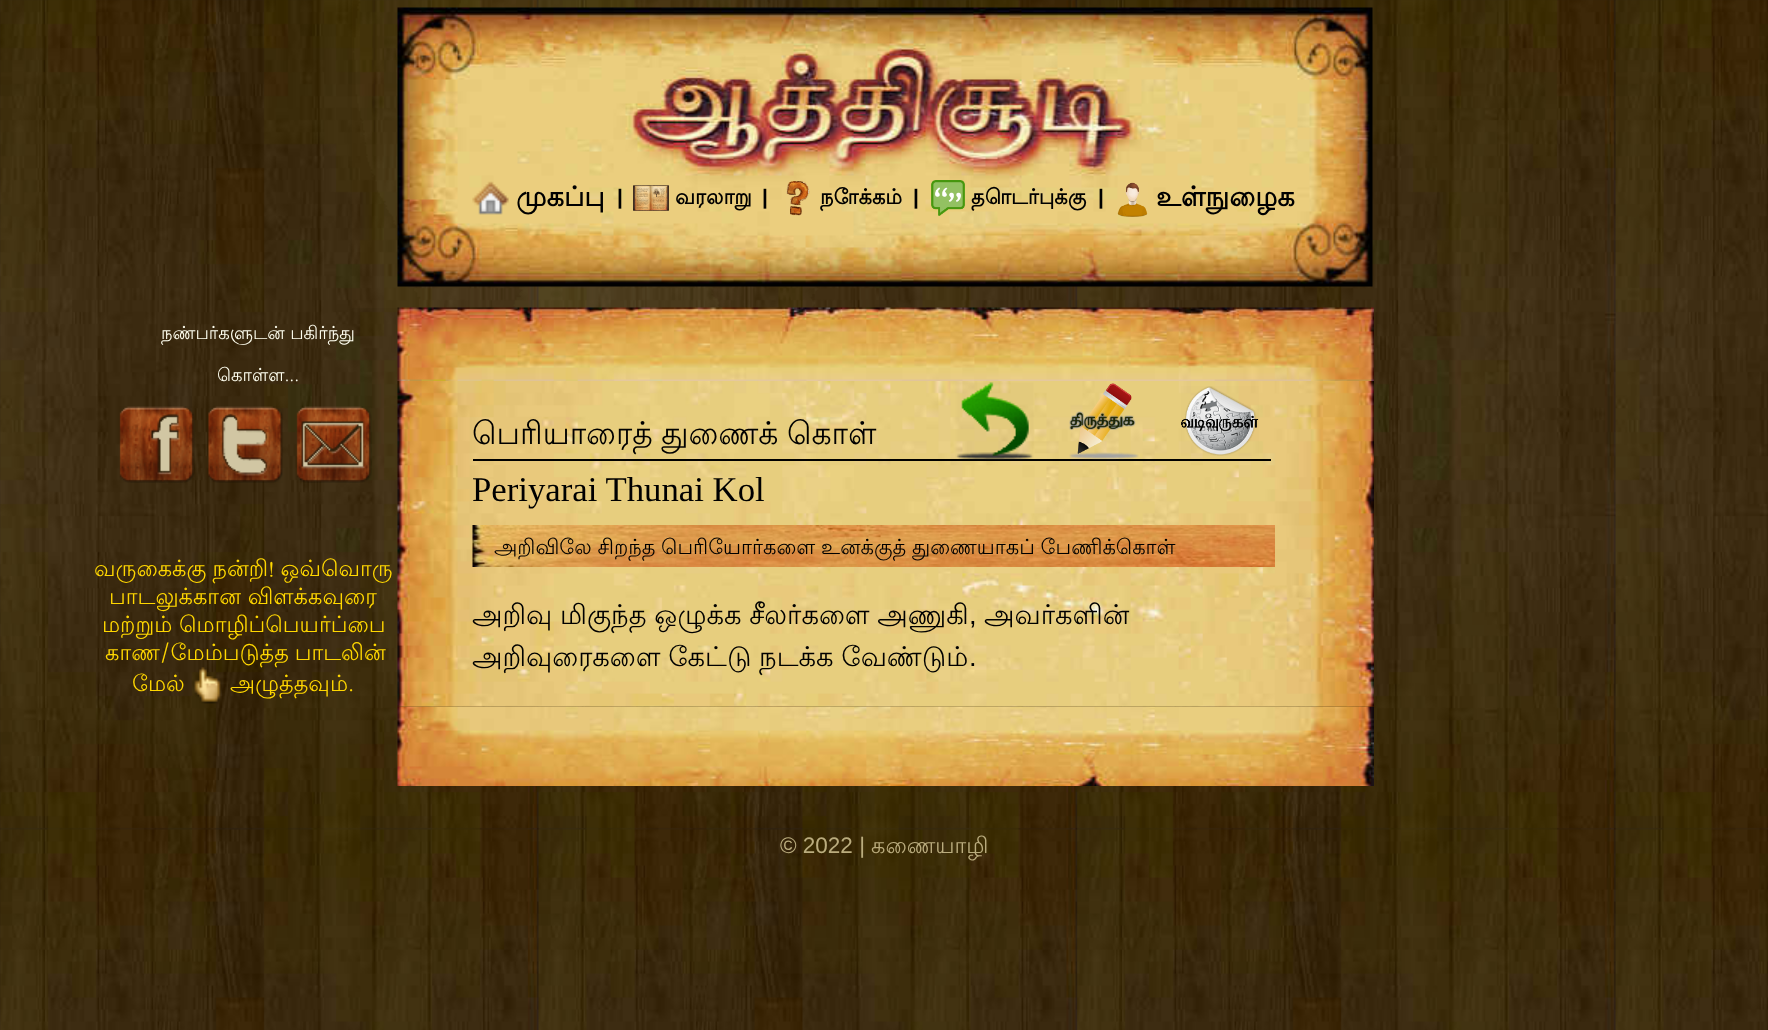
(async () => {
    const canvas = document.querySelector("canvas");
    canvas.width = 1768;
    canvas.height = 1030;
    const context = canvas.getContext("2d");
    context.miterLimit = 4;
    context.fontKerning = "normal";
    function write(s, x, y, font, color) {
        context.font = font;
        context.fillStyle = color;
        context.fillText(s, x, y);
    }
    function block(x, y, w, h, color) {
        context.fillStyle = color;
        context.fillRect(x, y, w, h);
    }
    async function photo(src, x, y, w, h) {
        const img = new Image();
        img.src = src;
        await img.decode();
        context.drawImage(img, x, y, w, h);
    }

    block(0, 0, 1768, 1030, "rgb(255, 255, 255)");
    await photo("media/1.png", 0, 0, 1768, 1030);
    await photo("media/2.png", 352, 0, 527, 308);
    await photo("media/3.png", 397, 7, 976, 280);
    await photo("media/4.png", 472, 181, 37, 34);
    write("முகப்பு", 516, 206, "bold 27.4px Lohit Tamil", "rgb(0, 0, 0)");
    write("|", 617, 204, "bold 21px Liberation Sans", "rgb(0, 0, 0)");
    await photo("media/5.png", 633, 185, 36, 26);
    write("வரலாறு", 675, 204, "bold 21px Lohit Tamil", "rgb(0, 0, 0)");
    write("|", 762, 204, "bold 21px Liberation Sans", "rgb(0, 0, 0)");
    await photo("media/6.png", 786, 181, 24, 35);
    write("நோக்கம்", 820, 204, "bold 21px Lohit Tamil", "rgb(0, 0, 0)");
    write("|", 913, 204, "bold 21px Liberation Sans", "rgb(0, 0, 0)");
    await photo("media/7.png", 931, 180, 34, 36);
    write("தொடர்புக்கு", 971, 204, "bold 21px Lohit Tamil", "rgb(0, 0, 0)");
    write("|", 1098, 204, "bold 21px Liberation Sans", "rgb(0, 0, 0)");
    await photo("media/8.png", 1117, 182, 31, 35);
    write("உள்நுழைக", 1156, 206, "bold 27.4px Lohit Tamil", "rgb(0, 0, 0)");
    await photo("media/9.png", 397, 307, 977, 74);
    write("நண்பர்களுடன் பகிர்ந்து", 161, 339, "18px Lohit Tamil", "rgb(255, 255, 240)");
    write("கொள்ள...", 217, 381, "18px Lohit Tamil", "rgb(255, 255, 240)");
    await photo("media/10.png", 119, 406, 76, 77);
    await photo("media/11.png", 208, 406, 75, 77);
    await photo("media/12.png", 296, 406, 76, 77);
    context.wordSpacing = "-0.5px";
    write("வருகைக்கு நன்றி! ஒவ்வொரு", 94, 576, "22.5px Lohit Tamil", "rgb(255, 215, 0)");
    context.wordSpacing = "0px";
    write("பாடலுக்கான விளக்கவுரை", 109, 604, "22.5px Lohit Tamil", "rgb(255, 215, 0)");
    write("மற்றும் மொழிப்பெயர்ப்பை", 102, 632, "22.5px Lohit Tamil", "rgb(255, 215, 0)");
    context.wordSpacing = "-1px";
    write("காண/மேம்படுத்த பாடலின்", 105, 660, "22.5px Lohit Tamil", "rgb(255, 215, 0)");
    context.wordSpacing = "0px";
    write("மேல்", 132, 691, "22.5px Lohit Tamil", "rgb(255, 215, 0)");
    await photo("media/13.png", 194, 667, 27, 37);
    write("அழுத்தவும்.", 230, 691, "22.5px Lohit Tamil", "rgb(255, 215, 0)");
    await photo("media/19.png", 397, 706, 977, 80);
    await photo("media/14.png", 397, 381, 977, 326);
    context.wordSpacing = "-1px";
    write("பெரியாரைத் துணைக் கொள்", 472, 444, "31.5px Lohit Tamil", "rgb(0, 0, 0)");
    block(473, 459, 798, 2, "rgb(0, 0, 0)");
    await photo("media/15.png", 955, 382, 79, 78);
    await photo("media/16.png", 1069, 383, 70, 77);
    await photo("media/17.png", 1181, 386, 78, 70);
    context.wordSpacing = "0px";
    write("Periyarai Thunai Kol", 472, 501, "34.75px Liberation Serif", "rgb(0, 0, 0)");
    await photo("media/18.png", 472, 525, 803, 42);
    context.wordSpacing = "-0.5px";
    write("அறிவிலே சிறந்த பெரியோர்களை உனக்குத் துணையாகப் பேணிக்கொள்", 494, 554, "21px Lohit Tamil", "rgb(0, 0, 0)");
    write("அறிவு மிகுந்த ஒழுக்க சீலர்களை அணுகி", 472, 624, "27.4px Lohit Tamil", "rgb(0, 0, 0)");
    context.wordSpacing = "0px";
    write(",", 969, 624, "27.4px Liberation Sans", "rgb(0, 0, 0)");
    write("அவர்களின்", 984, 624, "27.4px Lohit Tamil", "rgb(0, 0, 0)");
    context.wordSpacing = "-0.5px";
    write("அறிவுரைகளை கேட்டு நடக்க வேண்டும்", 472, 666, "27.4px Lohit Tamil", "rgb(0, 0, 0)");
    context.wordSpacing = "0px";
    write(".", 969, 666, "27.4px Liberation Sans", "rgb(0, 0, 0)");
    write("© 2022 |", 780, 853, "22.5px Liberation Sans", "rgb(186, 172, 126)");
    write("கணையாழி", 871, 853, "22.5px Lohit Tamil", "rgb(186, 172, 126)");
})();
